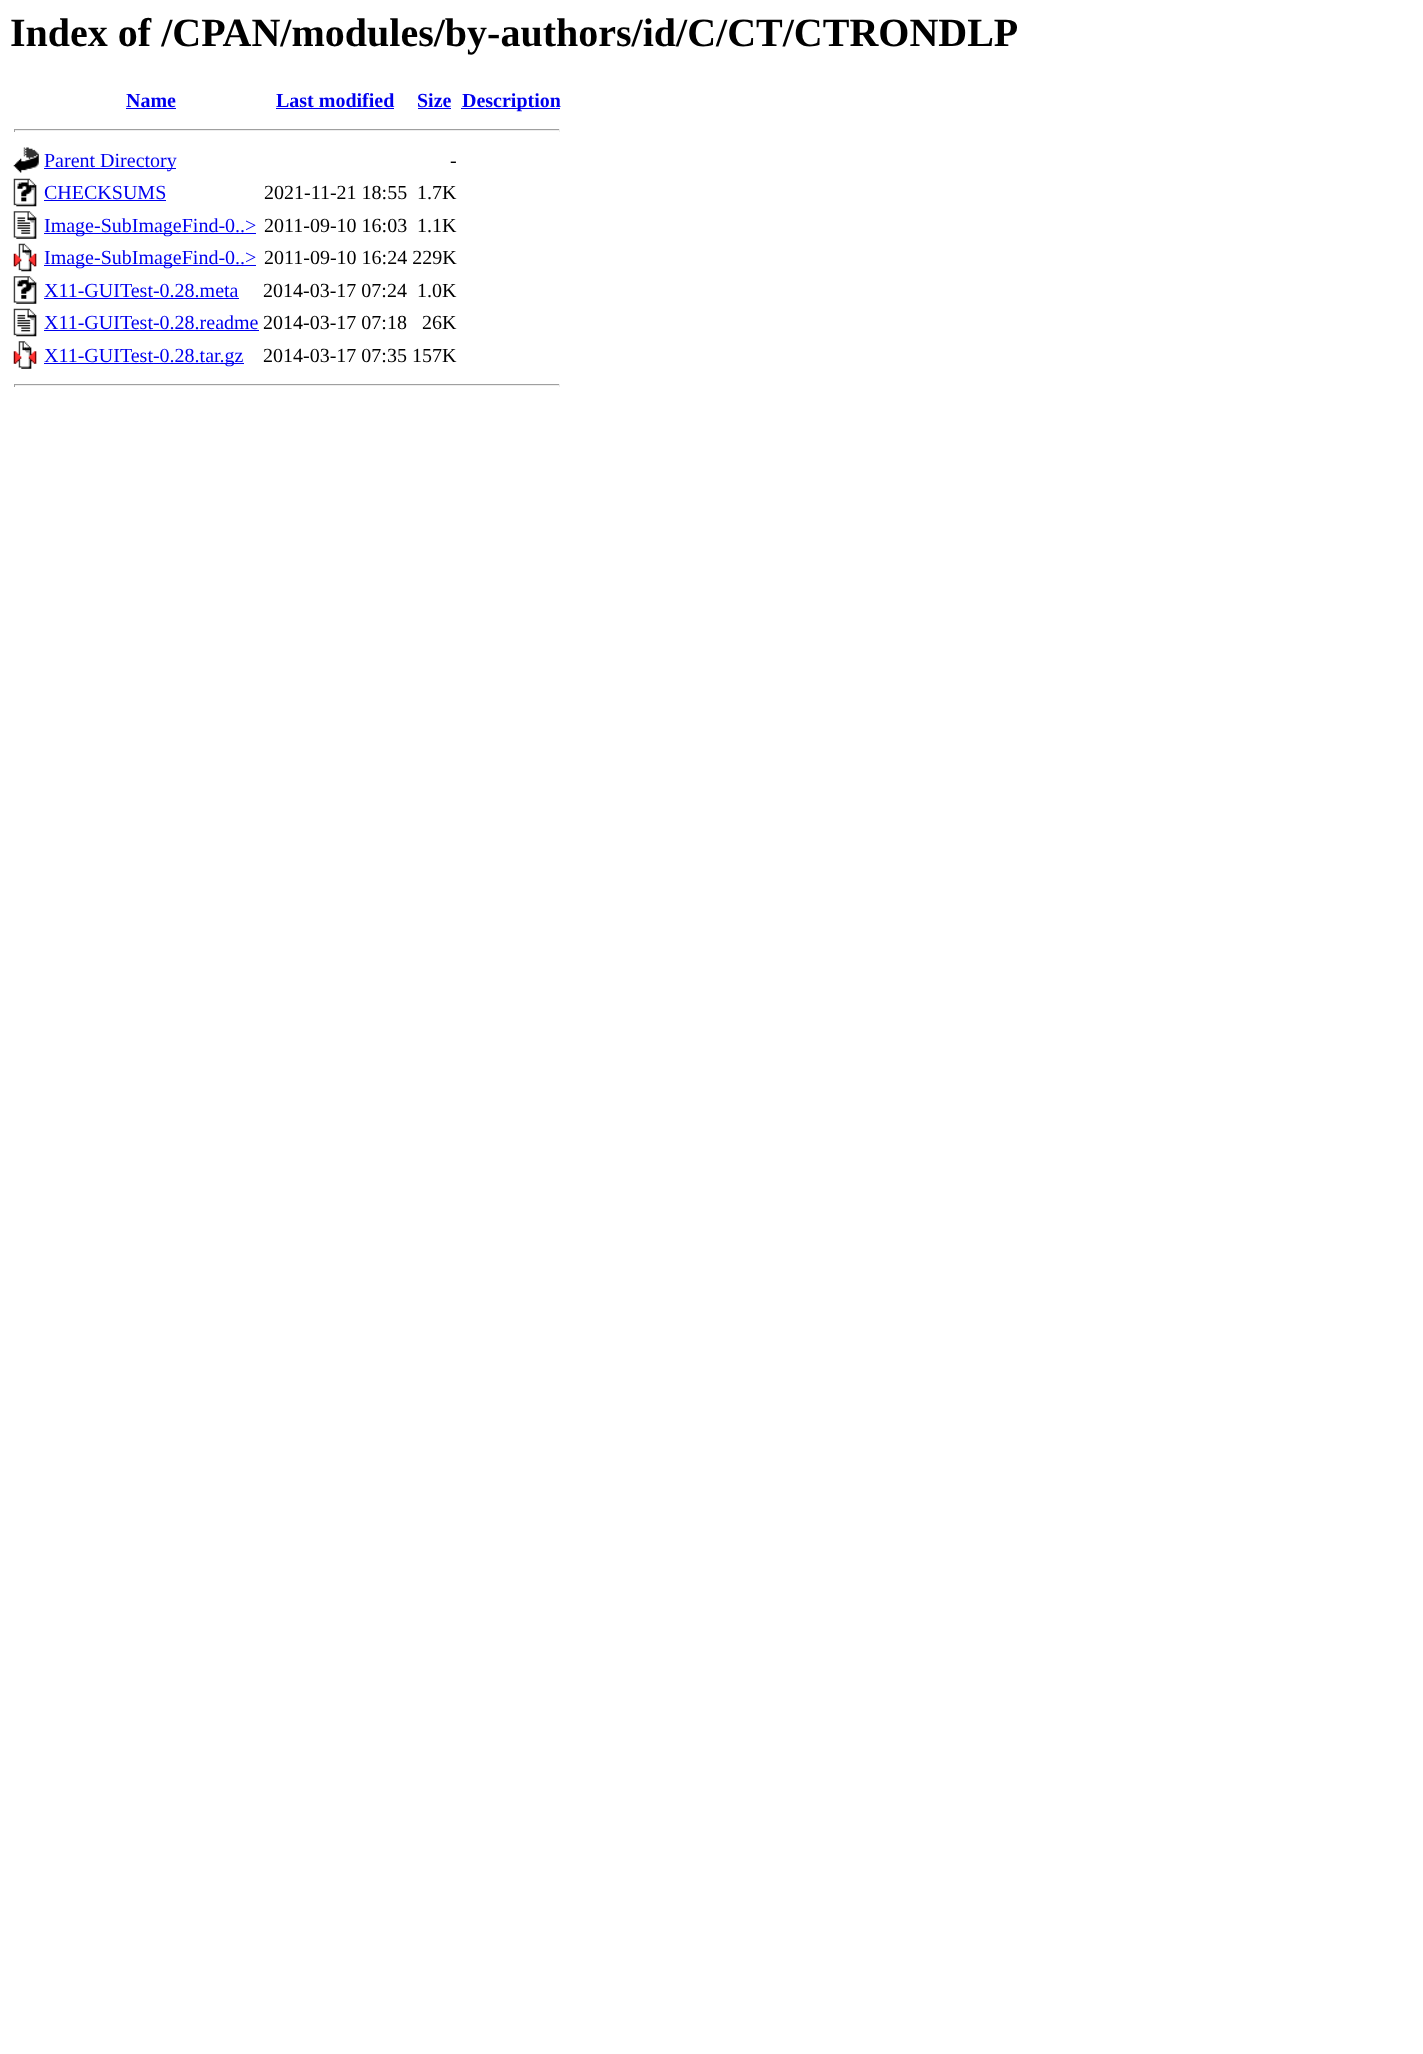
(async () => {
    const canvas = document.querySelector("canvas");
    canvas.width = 1423;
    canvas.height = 2054;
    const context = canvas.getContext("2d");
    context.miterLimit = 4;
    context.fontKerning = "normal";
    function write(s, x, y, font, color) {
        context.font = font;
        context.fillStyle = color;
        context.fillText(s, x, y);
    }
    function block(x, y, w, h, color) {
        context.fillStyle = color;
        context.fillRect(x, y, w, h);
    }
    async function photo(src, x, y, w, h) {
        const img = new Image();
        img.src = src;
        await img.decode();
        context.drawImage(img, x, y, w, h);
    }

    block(0, 0, 1423, 2054, "rgb(255, 255, 255)");
    write("Index of /CPAN/modules/by-authors/id/C/CT/CTRONDLP", 10, 46, "bold 40px Liberation Serif", "rgb(0, 0, 0)");
    write("Name", 126, 107, "bold 20px Liberation Serif", "rgb(0, 0, 238)");
    block(126, 108, 50, 1, "rgb(0, 0, 238)");
    write("Last modified", 276, 107, "bold 20px Liberation Serif", "rgb(0, 0, 238)");
    block(276, 108, 118, 1, "rgb(0, 0, 238)");
    write("Size", 417, 107, "bold 20px Liberation Serif", "rgb(0, 0, 238)");
    block(418, 108, 33, 1, "rgb(0, 0, 238)");
    block(461, 108, 99, 1, "rgb(0, 0, 238)");
    write("Description", 462, 107, "bold 20px Liberation Serif", "rgb(0, 0, 238)");
    block(14, 129, 546, 1, "rgb(159, 159, 159)");
    block(559, 129, 1, 3, "rgb(238, 238, 238)");
    block(14, 130, 546, 1, "rgb(238, 238, 238)");
    block(14, 129, 1, 3, "rgb(159, 159, 159)");
    await photo("media/1.png", 13, 147, 26, 26);
    block(44, 168, 132, 1, "rgb(0, 0, 238)");
    write("Parent Directory", 44, 167, "20px Liberation Serif", "rgb(0, 0, 238)");
    write("-", 450, 167, "20px Liberation Serif", "rgb(0, 0, 0)");
    await photo("media/2.png", 13, 178, 24, 29);
    write("CHECKSUMS", 44, 199, "20px Liberation Serif", "rgb(0, 0, 238)");
    block(44, 200, 122, 1, "rgb(0, 0, 238)");
    write("2021-11-21 18:55", 264, 199, "20px Liberation Serif", "rgb(0, 0, 0)");
    write("1.7K", 417, 199, "20px Liberation Serif", "rgb(0, 0, 0)");
    await photo("media/3.png", 13, 211, 24, 28);
    block(44, 233, 212, 1, "rgb(0, 0, 238)");
    write("Image-SubImageFind-0..>", 44, 232, "20px Liberation Serif", "rgb(0, 0, 238)");
    write("2011-09-10 16:03", 264, 232, "20px Liberation Serif", "rgb(0, 0, 0)");
    write("1.1K", 417, 232, "20px Liberation Serif", "rgb(0, 0, 0)");
    await photo("media/4.png", 13, 243, 24, 29);
    block(44, 265, 212, 1, "rgb(0, 0, 238)");
    write("Image-SubImageFind-0..>", 44, 264, "20px Liberation Serif", "rgb(0, 0, 238)");
    write("2011-09-10 16:24 229K", 264, 264, "20px Liberation Serif", "rgb(0, 0, 0)");
    await photo("media/5.png", 13, 276, 24, 28);
    write("X11-GUITest-0.28.meta", 44, 297, "20px Liberation Serif", "rgb(0, 0, 238)");
    block(44, 298, 195, 1, "rgb(0, 0, 238)");
    write("2014-03-17 07:24", 263, 297, "20px Liberation Serif", "rgb(0, 0, 0)");
    write("1.0K", 417, 297, "20px Liberation Serif", "rgb(0, 0, 0)");
    await photo("media/6.png", 13, 308, 24, 29);
    write("X11-GUITest-0.28.readme", 44, 329, "20px Liberation Serif", "rgb(0, 0, 238)");
    block(44, 330, 215, 1, "rgb(0, 0, 238)");
    write("2014-03-17 07:18", 263, 329, "20px Liberation Serif", "rgb(0, 0, 0)");
    write("26K", 422, 329, "20px Liberation Serif", "rgb(0, 0, 0)");
    await photo("media/7.png", 13, 341, 24, 28);
    block(44, 363, 200, 1, "rgb(0, 0, 238)");
    write("X11-GUITest-0.28.tar.gz", 44, 362, "20px Liberation Serif", "rgb(0, 0, 238)");
    write("2014-03-17 07:35 157K", 263, 362, "20px Liberation Serif", "rgb(0, 0, 0)");
    block(14, 384, 546, 1, "rgb(159, 159, 159)");
    block(559, 384, 1, 3, "rgb(238, 238, 238)");
    block(14, 385, 546, 1, "rgb(238, 238, 238)");
    block(14, 384, 1, 3, "rgb(159, 159, 159)");
})();
